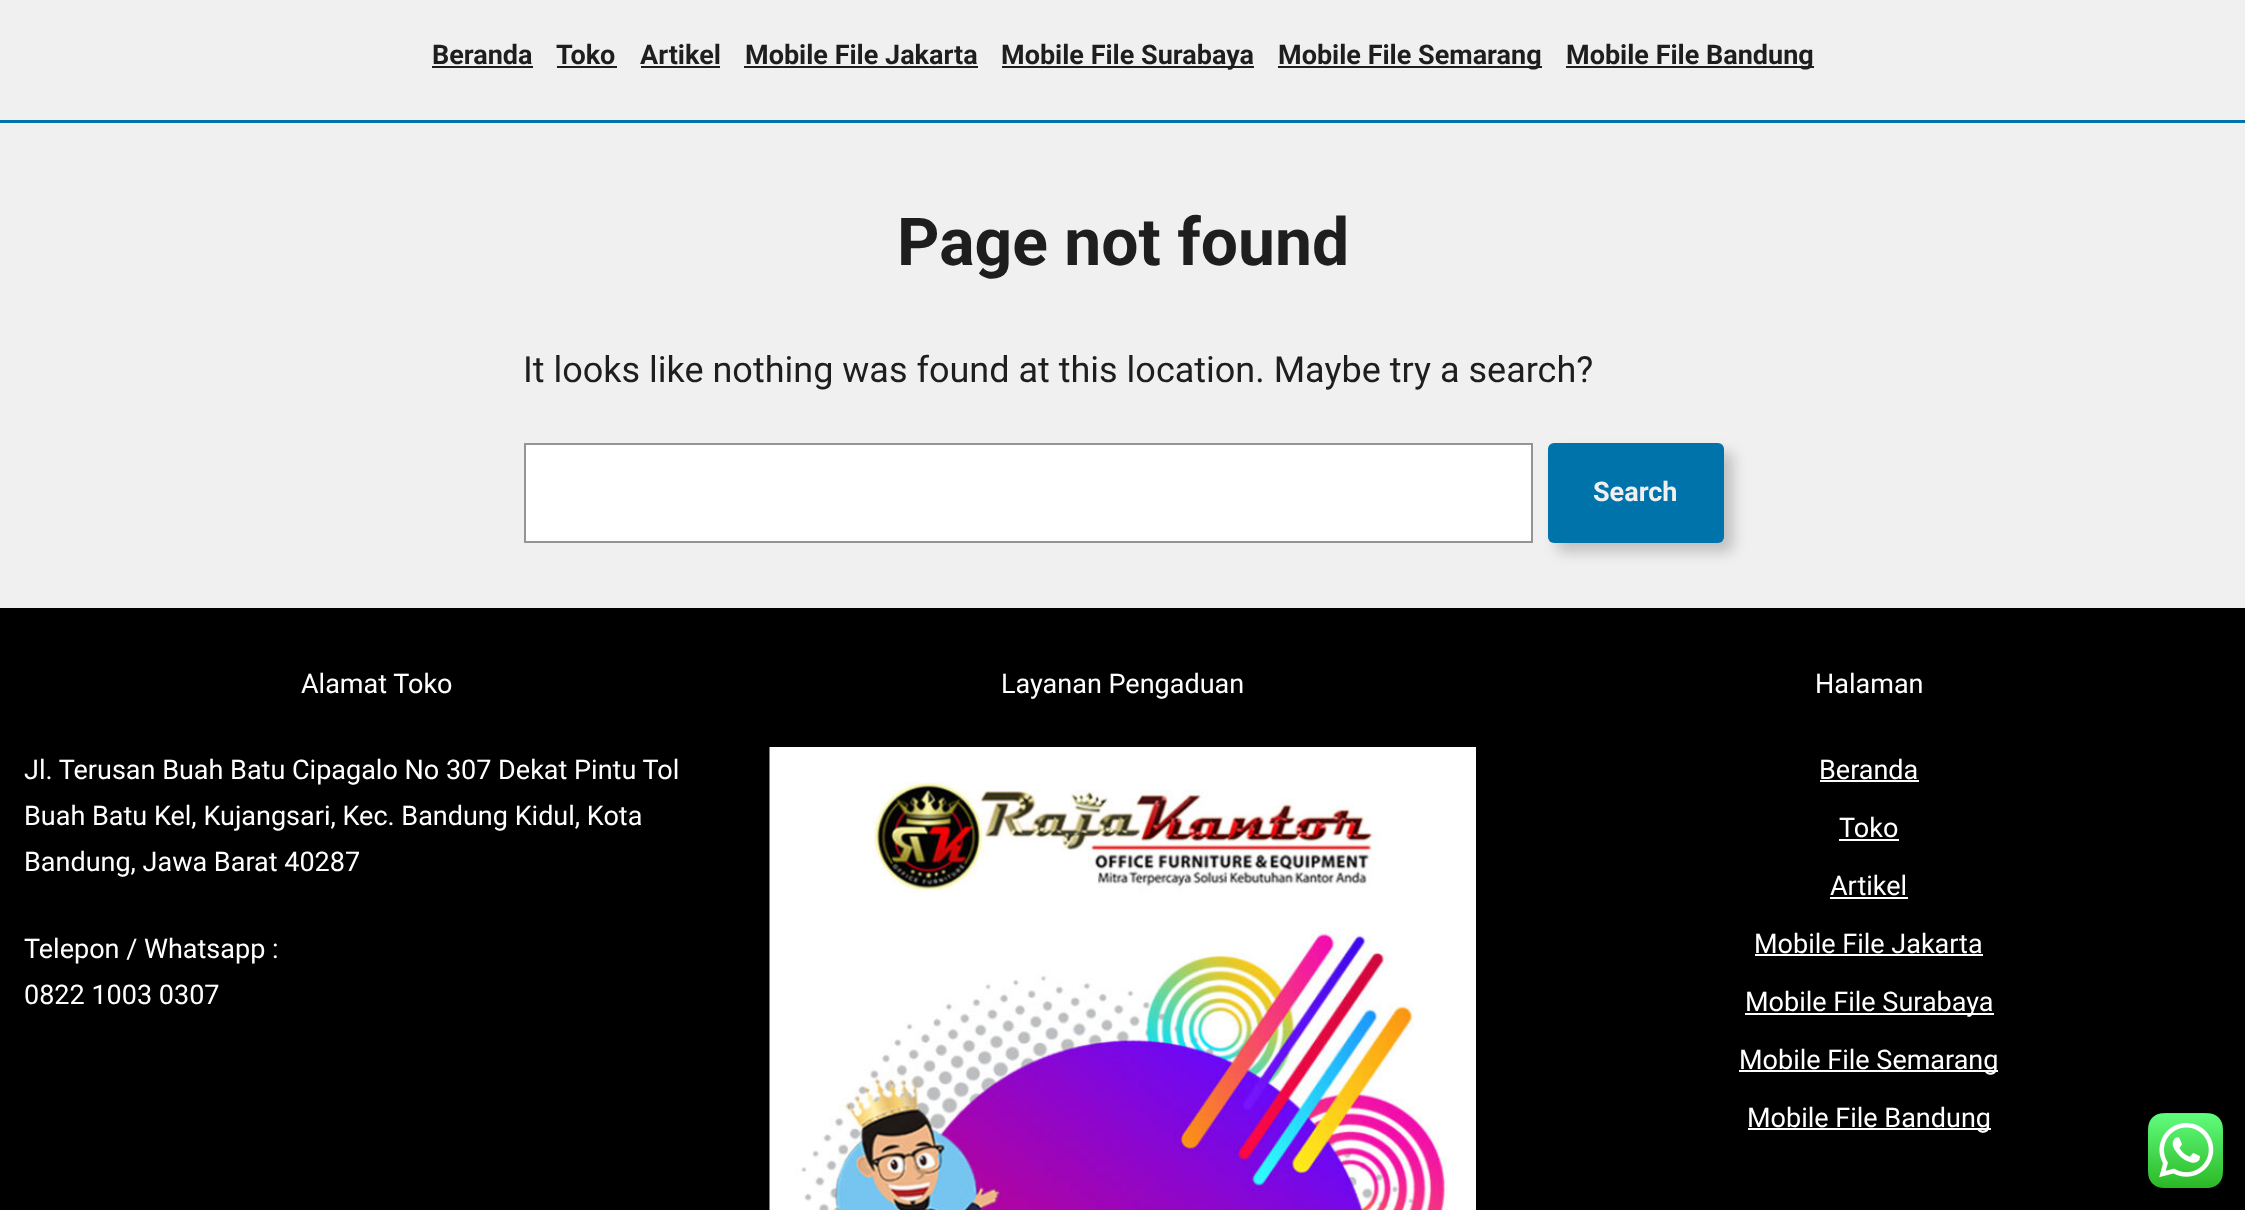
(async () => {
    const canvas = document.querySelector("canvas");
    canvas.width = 2245;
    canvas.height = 1210;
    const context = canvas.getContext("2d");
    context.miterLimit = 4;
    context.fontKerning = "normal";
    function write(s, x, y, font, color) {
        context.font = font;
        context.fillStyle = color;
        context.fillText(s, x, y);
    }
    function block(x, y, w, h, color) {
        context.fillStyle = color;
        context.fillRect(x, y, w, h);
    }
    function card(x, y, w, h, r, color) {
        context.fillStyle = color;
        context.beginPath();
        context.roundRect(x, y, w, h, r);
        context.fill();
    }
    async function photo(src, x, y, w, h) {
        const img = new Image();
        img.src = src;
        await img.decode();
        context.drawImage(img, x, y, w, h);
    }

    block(0, 0, 2245, 1210, "rgb(240, 240, 240)");
    write("Beranda", 432, 64, "bold 27px Roboto", "rgb(30, 30, 30)");
    block(432, 66, 101, 2, "rgb(30, 30, 30)");
    write("Toko", 556, 64, "bold 27px Roboto", "rgb(30, 30, 30)");
    block(557, 66, 60, 2, "rgb(30, 30, 30)");
    write("Artikel", 640, 64, "bold 27px Roboto", "rgb(30, 30, 30)");
    block(641, 66, 79, 2, "rgb(30, 30, 30)");
    write("Mobile File Jakarta", 745, 64, "bold 27px Roboto", "rgb(30, 30, 30)");
    block(744, 66, 234, 2, "rgb(30, 30, 30)");
    block(1002, 66, 252, 2, "rgb(30, 30, 30)");
    write("Mobile File Surabaya", 1001, 64, "bold 27px Roboto", "rgb(30, 30, 30)");
    block(1278, 66, 264, 2, "rgb(30, 30, 30)");
    write("Mobile File Semarang", 1278, 64, "bold 27px Roboto", "rgb(30, 30, 30)");
    block(1566, 66, 248, 2, "rgb(30, 30, 30)");
    write("Mobile File Bandung", 1566, 64, "bold 27px Roboto", "rgb(30, 30, 30)");
    block(0, 120, 2245, 3, "rgb(0, 115, 170)");
    write("Page not found", 897, 265, "bold 66px Roboto", "rgb(30, 30, 30)");
    write("It looks like nothing was found at this location. Maybe try a search?", 523, 382, "36px Roboto", "rgb(30, 30, 30)");
    context.fillStyle = "rgb(255, 255, 255)";
    context.beginPath();
    context.rect(525, 444, 1007, 98);
    context.fill();
    context.strokeStyle = "rgb(148, 148, 148)";
    context.lineWidth = 2;
    context.stroke();
    context.fillStyle = "rgba(0, 0, 0, 0.2)";
    context.filter = "blur(7px)";
    context.beginPath();
    context.roundRect(1557, 452, 176, 100, 6);
    context.fill();
    context.filter = "none";
    card(1548, 443, 176, 100, 6, "rgb(0, 115, 170)");
    write("Search", 1593, 501, "bold 27px Roboto", "rgb(240, 240, 240)");
    block(0, 608, 2245, 602, "rgb(0, 0, 0)");
    write("Alamat Toko", 301, 693, "27px Roboto", "rgb(255, 255, 255)");
    write("Jl. Terusan Buah Batu Cipagalo No 307 Dekat Pintu Tol", 24, 779, "27px Roboto", "rgb(255, 255, 255)");
    write("Buah Batu Kel, Kujangsari, Kec. Bandung Kidul, Kota", 24, 825, "27px Roboto", "rgb(255, 255, 255)");
    write("Bandung, Jawa Barat 40287", 24, 871, "27px Roboto", "rgb(255, 255, 255)");
    write("Telepon / Whatsapp :", 24, 958, "27px Roboto", "rgb(255, 255, 255)");
    write("0822 1003 0307", 24, 1004, "27px Roboto", "rgb(255, 255, 255)");
    write("Layanan Pengaduan", 1001, 693, "27px Roboto", "rgb(255, 255, 255)");
    await photo("media/1.png", 769, 747, 707, 463);
    write("Halaman", 1815, 693, "27px Roboto", "rgb(255, 255, 255)");
    write("Beranda", 1819, 779, "27px Roboto", "rgb(255, 255, 255)");
    block(1820, 780, 99, 2, "rgb(255, 255, 255)");
    write("Toko", 1839, 837, "27px Roboto", "rgb(255, 255, 255)");
    block(1839, 839, 60, 2, "rgb(255, 255, 255)");
    write("Artikel", 1830, 895, "27px Roboto", "rgb(255, 255, 255)");
    block(1830, 897, 78, 2, "rgb(255, 255, 255)");
    write("Mobile File Jakarta", 1754, 953, "27px Roboto", "rgb(255, 255, 255)");
    block(1755, 954, 228, 2, "rgb(255, 255, 255)");
    block(1745, 1013, 249, 2, "rgb(255, 255, 255)");
    write("Mobile File Surabaya", 1745, 1011, "27px Roboto", "rgb(255, 255, 255)");
    block(1739, 1070, 259, 2, "rgb(255, 255, 255)");
    write("Mobile File Semarang", 1739, 1069, "27px Roboto", "rgb(255, 255, 255)");
    block(1748, 1128, 243, 2, "rgb(255, 255, 255)");
    write("Mobile File Bandung", 1747, 1127, "27px Roboto", "rgb(255, 255, 255)");
    await photo("media/2.png", 2148, 1113, 75, 75);
})();
